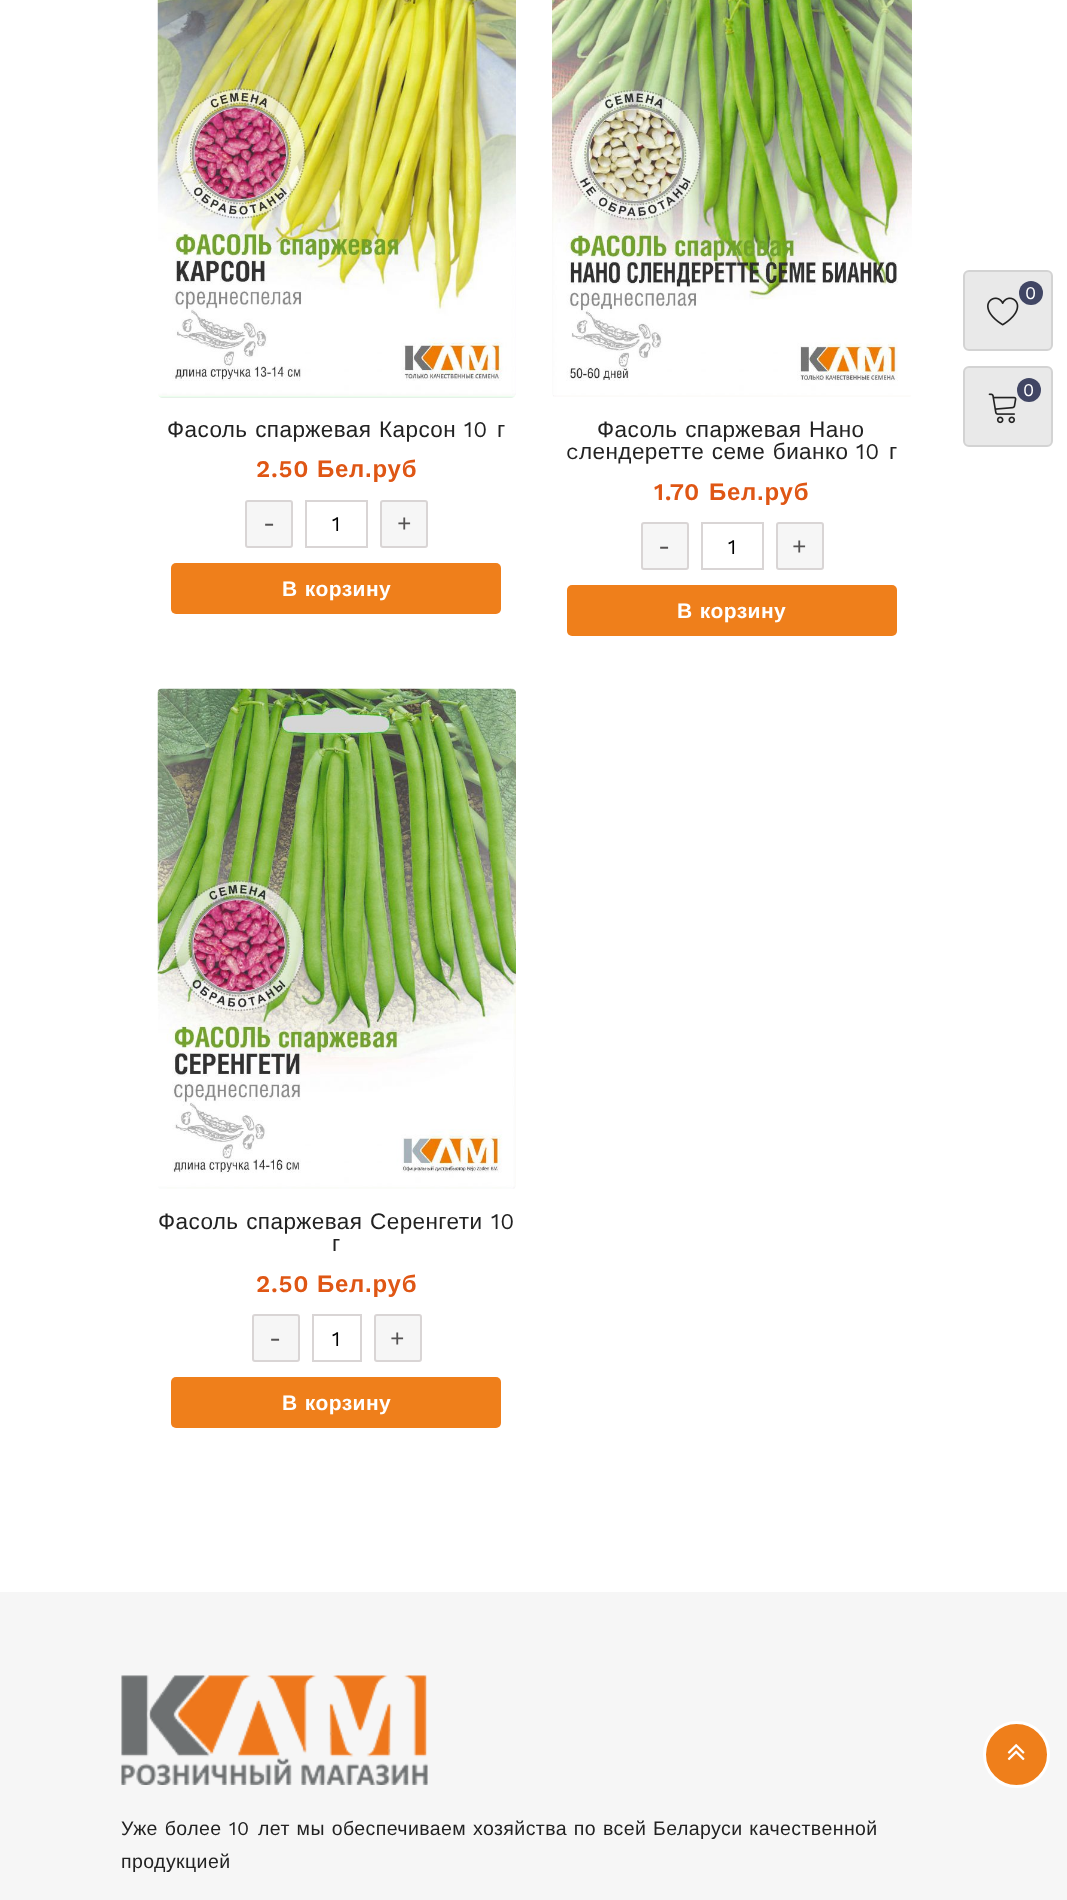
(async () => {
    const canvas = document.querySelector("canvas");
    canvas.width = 1067;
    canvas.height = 1900;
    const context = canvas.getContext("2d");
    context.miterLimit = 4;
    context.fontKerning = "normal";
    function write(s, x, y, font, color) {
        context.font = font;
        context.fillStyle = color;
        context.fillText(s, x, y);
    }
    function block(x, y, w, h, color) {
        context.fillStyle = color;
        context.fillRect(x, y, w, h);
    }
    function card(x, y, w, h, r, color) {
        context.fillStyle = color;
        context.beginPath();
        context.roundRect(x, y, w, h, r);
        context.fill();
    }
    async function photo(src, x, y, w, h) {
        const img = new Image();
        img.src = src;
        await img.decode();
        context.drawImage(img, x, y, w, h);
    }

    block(0, 0, 1067, 1900, "rgb(255, 255, 255)");
    context.fillStyle = "rgb(233, 233, 233)";
    context.beginPath();
    context.roundRect(964, 271, 88, 79, 5);
    context.fill();
    context.strokeStyle = "rgb(211, 211, 211)";
    context.lineWidth = 2;
    context.stroke();
    context.fillStyle = "rgb(65, 70, 100)";
    context.beginPath();
    context.arc(1031, 293, 12, 0, Math.PI * 2);
    context.fill();
    context.letterSpacing = "0.42px";
    write("0", 1025, 299, "18px Work Sans", "rgb(255, 255, 255)");
    await photo("media/1.png", 987, 297, 32, 29);
    context.fillStyle = "rgb(233, 233, 233)";
    context.beginPath();
    context.roundRect(964, 367, 88, 79, 5);
    context.fill();
    context.stroke();
    context.fillStyle = "rgb(65, 70, 100)";
    context.beginPath();
    context.arc(1029, 390, 12, 0, Math.PI * 2);
    context.fill();
    write("0", 1023, 396, "18px Work Sans", "rgb(255, 255, 255)");
    await photo("media/2.png", 988, 393, 29, 31);
    await photo("media/3.png", 157, 0, 359, 398);
    context.wordSpacing = "1px";
    write("Фасоль спаржевая Карсон", 167, 437, "22.5px Liberation Sans", "rgb(34, 34, 34)");
    context.wordSpacing = "0px";
    write("10", 464, 437, "22.5px Work Sans", "rgb(34, 34, 34)");
    write("г", 497, 437, "22.5px Liberation Sans", "rgb(34, 34, 34)");
    context.letterSpacing = "0.75px";
    write("2.50", 256, 477, "600 24px Work Sans", "rgb(223, 86, 20)");
    write("Бел.руб", 317, 477, "bold 24px Liberation Sans", "rgb(223, 86, 20)");
    context.fillStyle = "rgb(246, 246, 246)";
    context.beginPath();
    context.roundRect(246, 501, 46, 46, 2);
    context.fill();
    context.strokeStyle = "rgb(217, 213, 213)";
    context.stroke();
    context.letterSpacing = "0px";
    write("-", 263, 531, "24px Work Sans", "rgb(85, 83, 83)");
    context.strokeRect(306, 501, 61, 46);
    write("1", 332, 531, "21px Work Sans", "rgb(0, 0, 0)");
    context.fillStyle = "rgb(246, 246, 246)";
    context.beginPath();
    context.roundRect(381, 501, 46, 46, 2);
    context.fill();
    context.stroke();
    write("+", 397, 531, "24px Work Sans", "rgb(85, 83, 83)");
    card(171, 563, 330, 51, 5, "rgb(239, 127, 27)");
    context.letterSpacing = "0.42px";
    context.wordSpacing = "1px";
    write("В корзину", 282, 596, "bold 21px Liberation Sans", "rgb(255, 255, 255)");
    await photo("media/4.png", 552, 0, 360, 397);
    write("Фасоль спаржевая Нано", 597, 437, "22.5px Liberation Sans", "rgb(34, 34, 34)");
    context.wordSpacing = "0px";
    write("c", 566, 459, "22.5px Work Sans", "rgb(34, 34, 34)");
    context.wordSpacing = "1px";
    write("лендеретте семе бианко", 579, 459, "22.5px Liberation Sans", "rgb(34, 34, 34)");
    context.wordSpacing = "0px";
    write("10", 856, 459, "22.5px Work Sans", "rgb(34, 34, 34)");
    write("г", 889, 459, "22.5px Liberation Sans", "rgb(34, 34, 34)");
    context.letterSpacing = "0.75px";
    write("1.70", 654, 500, "600 24px Work Sans", "rgb(223, 86, 20)");
    write("Бел.руб", 709, 500, "bold 24px Liberation Sans", "rgb(223, 86, 20)");
    context.fillStyle = "rgb(246, 246, 246)";
    context.beginPath();
    context.roundRect(642, 523, 46, 46, 2);
    context.fill();
    context.stroke();
    context.letterSpacing = "0px";
    write("-", 658, 554, "24px Work Sans", "rgb(85, 83, 83)");
    context.strokeRect(702, 523, 61, 46);
    write("1", 728, 554, "21px Work Sans", "rgb(0, 0, 0)");
    context.fillStyle = "rgb(246, 246, 246)";
    context.beginPath();
    context.roundRect(777, 523, 46, 46, 2);
    context.fill();
    context.stroke();
    write("+", 792, 554, "24px Work Sans", "rgb(85, 83, 83)");
    card(567, 585, 330, 51, 5, "rgb(239, 127, 27)");
    context.letterSpacing = "0.42px";
    context.wordSpacing = "1px";
    write("В корзину", 677, 618, "bold 21px Liberation Sans", "rgb(255, 255, 255)");
    await photo("media/5.png", 157, 688, 359, 501);
    write("Фасоль спаржевая Серенгети", 158, 1229, "22.5px Liberation Sans", "rgb(34, 34, 34)");
    context.wordSpacing = "0px";
    write("10", 491, 1229, "22.5px Work Sans", "rgb(34, 34, 34)");
    write("г", 332, 1251, "22.5px Liberation Sans", "rgb(34, 34, 34)");
    context.letterSpacing = "0.75px";
    write("2.50", 256, 1292, "600 24px Work Sans", "rgb(223, 86, 20)");
    write("Бел.руб", 317, 1292, "bold 24px Liberation Sans", "rgb(223, 86, 20)");
    context.fillStyle = "rgb(246, 246, 246)";
    context.beginPath();
    context.roundRect(253, 1315, 46, 46, 2);
    context.fill();
    context.stroke();
    context.letterSpacing = "0px";
    write("-", 269, 1346, "24px Work Sans", "rgb(85, 83, 83)");
    context.strokeRect(313, 1315, 48, 46);
    write("1", 332, 1346, "21px Work Sans", "rgb(0, 0, 0)");
    context.fillStyle = "rgb(246, 246, 246)";
    context.beginPath();
    context.roundRect(375, 1315, 46, 46, 2);
    context.fill();
    context.stroke();
    write("+", 390, 1346, "24px Work Sans", "rgb(85, 83, 83)");
    card(171, 1377, 330, 51, 5, "rgb(239, 127, 27)");
    context.letterSpacing = "0.42px";
    context.wordSpacing = "1px";
    write("В корзину", 282, 1410, "bold 21px Liberation Sans", "rgb(255, 255, 255)");
    block(0, 1592, 1067, 308, "rgb(246, 246, 246)");
    context.fillStyle = "rgb(239, 127, 27)";
    context.beginPath();
    context.arc(1016.5, 1754.5, 32, 0, Math.PI * 2);
    context.fill();
    context.strokeStyle = "rgb(255, 255, 255)";
    context.lineWidth = 3;
    context.stroke();
    await photo("media/6.png", 1007, 1744, 18, 17);
    await photo("media/7.png", 121, 1675, 307, 110);
    write("Уже более", 121, 1835, "19.5px Liberation Sans", "rgb(34, 34, 34)");
    context.wordSpacing = "0px";
    write("10", 229, 1835, "19.5px Work Sans", "rgb(34, 34, 34)");
    context.wordSpacing = "1px";
    write("лет мы обеспечиваем хозяйства по всей Беларуси качественной", 258, 1835, "19.5px Liberation Sans", "rgb(34, 34, 34)");
    context.wordSpacing = "0px";
    write("продукцией", 121, 1868, "19.5px Liberation Sans", "rgb(34, 34, 34)");
})();
